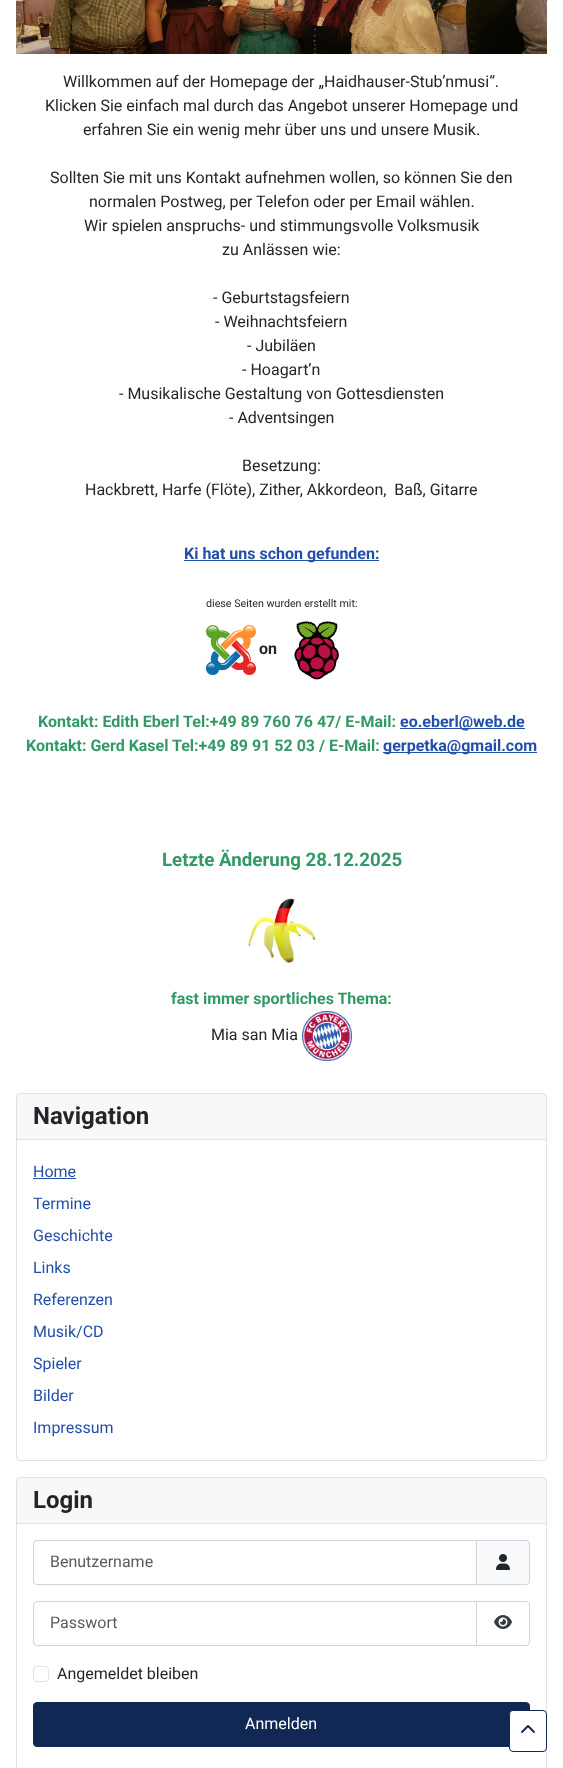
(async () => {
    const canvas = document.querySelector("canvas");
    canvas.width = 563;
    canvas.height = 1768;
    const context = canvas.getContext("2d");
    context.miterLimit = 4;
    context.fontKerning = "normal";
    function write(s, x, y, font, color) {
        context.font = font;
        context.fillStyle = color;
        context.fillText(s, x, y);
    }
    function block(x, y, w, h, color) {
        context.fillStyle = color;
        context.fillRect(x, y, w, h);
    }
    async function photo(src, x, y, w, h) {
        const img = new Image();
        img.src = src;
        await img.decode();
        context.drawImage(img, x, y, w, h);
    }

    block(0, 0, 563, 1768, "rgb(255, 255, 255)");
    await photo("media/1.png", 16, 0, 531, 54);
    write("Willkommen auf der Homepage der „Haidhauser-Stub’nmusi“.", 63, 87, "16px Roboto", "rgb(34, 38, 42)");
    write("Klicken Sie einfach mal durch das Angebot unserer Homepage und", 45, 111, "16px Roboto", "rgb(34, 38, 42)");
    write("erfahren Sie ein wenig mehr über uns und unsere Musik.", 83, 135, "16px Roboto", "rgb(34, 38, 42)");
    write("Sollten Sie mit uns Kontakt aufnehmen wollen, so können Sie den", 50, 183, "16px Roboto", "rgb(34, 38, 42)");
    write("normalen Postweg, per Telefon oder per Email wählen.", 89, 207, "16px Roboto", "rgb(34, 38, 42)");
    write("Wir spielen anspruchs- und stimmungsvolle Volksmusik", 84, 231, "16px Roboto", "rgb(34, 38, 42)");
    write("zu Anlässen wie:", 222, 255, "16px Roboto", "rgb(34, 38, 42)");
    write("- Geburtstagsfeiern", 213, 303, "16px Roboto", "rgb(34, 38, 42)");
    write("- Weihnachtsfeiern", 215, 327, "16px Roboto", "rgb(34, 38, 42)");
    write("- Jubiläen", 247, 351, "16px Roboto", "rgb(34, 38, 42)");
    write("- Hoagart’n", 242, 375, "16px Roboto", "rgb(34, 38, 42)");
    write("- Musikalische Gestaltung von Gottesdiensten", 119, 399, "16px Roboto", "rgb(34, 38, 42)");
    write("- Adventsingen", 229, 423, "16px Roboto", "rgb(34, 38, 42)");
    write("Besetzung:", 242, 471, "16px Roboto", "rgb(34, 38, 42)");
    write("Hackbrett, Harfe (Flöte), Zither, Akkordeon,  Baß, Gitarre", 85, 495, "16px Roboto", "rgb(34, 38, 42)");
    block(184, 560, 195, 1, "rgb(34, 79, 170)");
    write("Ki hat uns schon gefunden:", 184, 559, "bold 16px Roboto", "rgb(34, 79, 170)");
    write("diese Seiten wurden erstellt mit:", 206, 607, "10.7px Roboto", "rgb(34, 38, 42)");
    await photo("media/2.png", 206, 625, 50, 50);
    write("on", 259, 654, "bold 16px Roboto", "rgb(34, 38, 42)");
    await photo("media/3.png", 294, 621, 45, 59);
    write("Kontakt: Edith Eberl Tel:+49 89 760 76 47/ E-Mail:", 38, 727, "bold 16px Roboto", "rgb(51, 153, 102)");
    block(400, 728, 125, 1, "rgb(34, 79, 170)");
    write("eo.eberl@web.de", 400, 727, "bold 16px Roboto", "rgb(34, 79, 170)");
    write("Kontakt: Gerd Kasel Tel:+49 89 91 52 03 / E-Mail:", 26, 751, "bold 16px Roboto", "rgb(51, 153, 102)");
    block(383, 752, 154, 1, "rgb(34, 79, 170)");
    write("gerpetka@gmail.com", 383, 751, "bold 16px Roboto", "rgb(34, 79, 170)");
    write("Letzte Änderung 28.12.2025", 162, 866, "bold 18.7px Roboto", "rgb(51, 153, 102)");
    await photo("media/4.png", 248, 898, 68, 65);
    write("fast immer sportliches Thema:", 171, 1004, "bold 16px Roboto", "rgb(51, 153, 102)");
    write("Mia san Mia", 211, 1040, "16px Roboto", "rgb(34, 38, 42)");
    await photo("media/5.png", 302, 1011, 50, 50);
    context.beginPath();
    context.roundRect(16.5, 1093.5, 530, 367, 3.5);
    context.strokeStyle = "rgb(223, 227, 231)";
    context.stroke();
    block(17, 1094, 529, 45, "rgba(34, 38, 42, 0.03)");
    block(17, 1139, 529, 1, "rgb(223, 227, 231)");
    write("Navigation", 33, 1124, "bold 24px Roboto", "rgb(34, 38, 42)");
    write("Home", 33, 1177, "16px Roboto", "rgb(34, 79, 170)");
    block(33, 1178, 43, 1, "rgb(34, 79, 170)");
    write("Termine", 33, 1209, "16px Roboto", "rgb(34, 79, 170)");
    write("Geschichte", 33, 1241, "16px Roboto", "rgb(34, 79, 170)");
    write("Links", 33, 1273, "16px Roboto", "rgb(34, 79, 170)");
    write("Referenzen", 33, 1305, "16px Roboto", "rgb(34, 79, 170)");
    write("Musik/CD", 33, 1337, "16px Roboto", "rgb(34, 79, 170)");
    write("Spieler", 33, 1369, "16px Roboto", "rgb(34, 79, 170)");
    write("Bilder", 33, 1401, "16px Roboto", "rgb(34, 79, 170)");
    write("Impressum", 33, 1433, "16px Roboto", "rgb(34, 79, 170)");
    context.beginPath();
    context.roundRect(16.5, 1477.5, 530, 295, 3.5);
    context.stroke();
    block(17, 1478, 529, 45, "rgba(34, 38, 42, 0.03)");
    block(17, 1523, 529, 1, "rgb(223, 227, 231)");
    write("Login", 33, 1508, "bold 24px Roboto", "rgb(34, 38, 42)");
    context.fillStyle = "rgb(249, 250, 251)";
    context.beginPath();
    context.roundRect(476.5, 1540.5, 53, 44, [0, 3.5, 3.5, 0]);
    context.fill();
    context.strokeStyle = "rgb(206, 212, 218)";
    context.stroke();
    context.beginPath();
    context.roundRect(33.5, 1540.5, 443, 44, [3.5, 0, 0, 3.5]);
    context.stroke();
    write("Benutzername", 50, 1567, "16px Roboto", "rgb(89, 92, 95)");
    await photo("media/6.png", 496, 1554, 14, 16);
    context.beginPath();
    context.roundRect(33.5, 1601.5, 443, 44, [3.5, 0, 0, 3.5]);
    context.stroke();
    write("Passwort", 50, 1628, "16px Roboto", "rgb(89, 92, 95)");
    context.fillStyle = "rgb(255, 255, 255)";
    context.beginPath();
    context.roundRect(476.5, 1601.5, 53, 44, [0, 3.5, 3.5, 0]);
    context.fill();
    context.stroke();
    await photo("media/7.png", 494, 1615, 18, 14);
    context.beginPath();
    context.roundRect(33.5, 1666.5, 15, 15, 3.5);
    context.strokeStyle = "rgb(223, 227, 231)";
    context.stroke();
    write("Angemeldet bleiben", 57, 1679, "16px Roboto", "rgb(34, 38, 42)");
    context.fillStyle = "rgb(17, 40, 85)";
    context.beginPath();
    context.roundRect(33.5, 1702.5, 496, 44, 3.5);
    context.fill();
    context.strokeStyle = "rgb(17, 40, 85)";
    context.stroke();
    write("Anmelden", 245, 1729, "16px Roboto", "rgb(255, 255, 255)");
    context.beginPath();
    context.roundRect(509.5, 1710.5, 37, 41, 3.5);
    context.fill();
    context.stroke();
    await photo("media/8.png", 521, 1725, 14, 8);
})();
